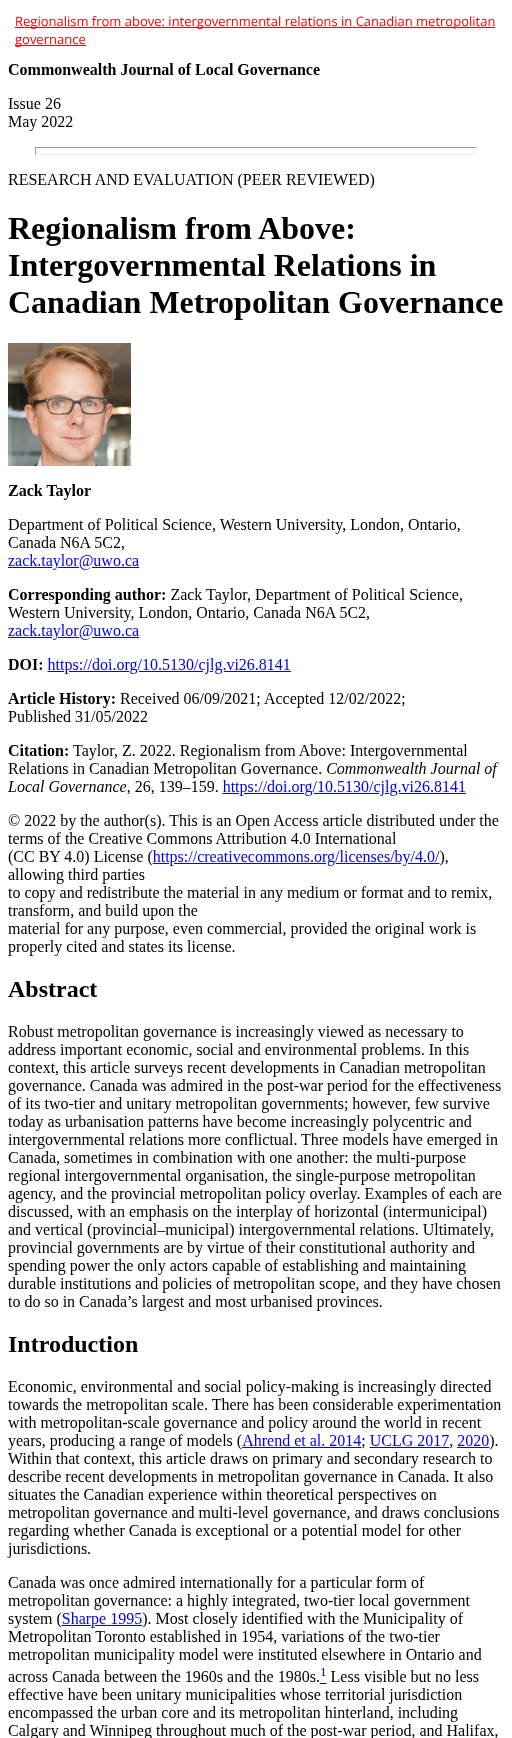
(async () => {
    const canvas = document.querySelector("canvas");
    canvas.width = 512;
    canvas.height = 1738;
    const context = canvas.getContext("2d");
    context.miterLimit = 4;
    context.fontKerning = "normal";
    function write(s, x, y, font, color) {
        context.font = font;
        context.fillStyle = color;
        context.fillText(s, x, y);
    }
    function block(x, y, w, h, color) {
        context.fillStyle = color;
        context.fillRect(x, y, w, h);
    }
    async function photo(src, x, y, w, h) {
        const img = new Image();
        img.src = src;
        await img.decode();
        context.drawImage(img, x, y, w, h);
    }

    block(0, 0, 512, 1738, "rgb(255, 255, 255)");
    block(15, 27, 480, 1, "rgb(255, 0, 0)");
    write("Regionalism from above: intergovernmental relations in Canadian metropolitan", 15, 26, "13px Open Sans", "rgb(255, 0, 0)");
    block(15, 45, 71, 1, "rgb(255, 0, 0)");
    write("governance", 15, 44, "13px Open Sans", "rgb(255, 0, 0)");
    await photo("media/1.png", 7, 63, 496, 1675);
})();
